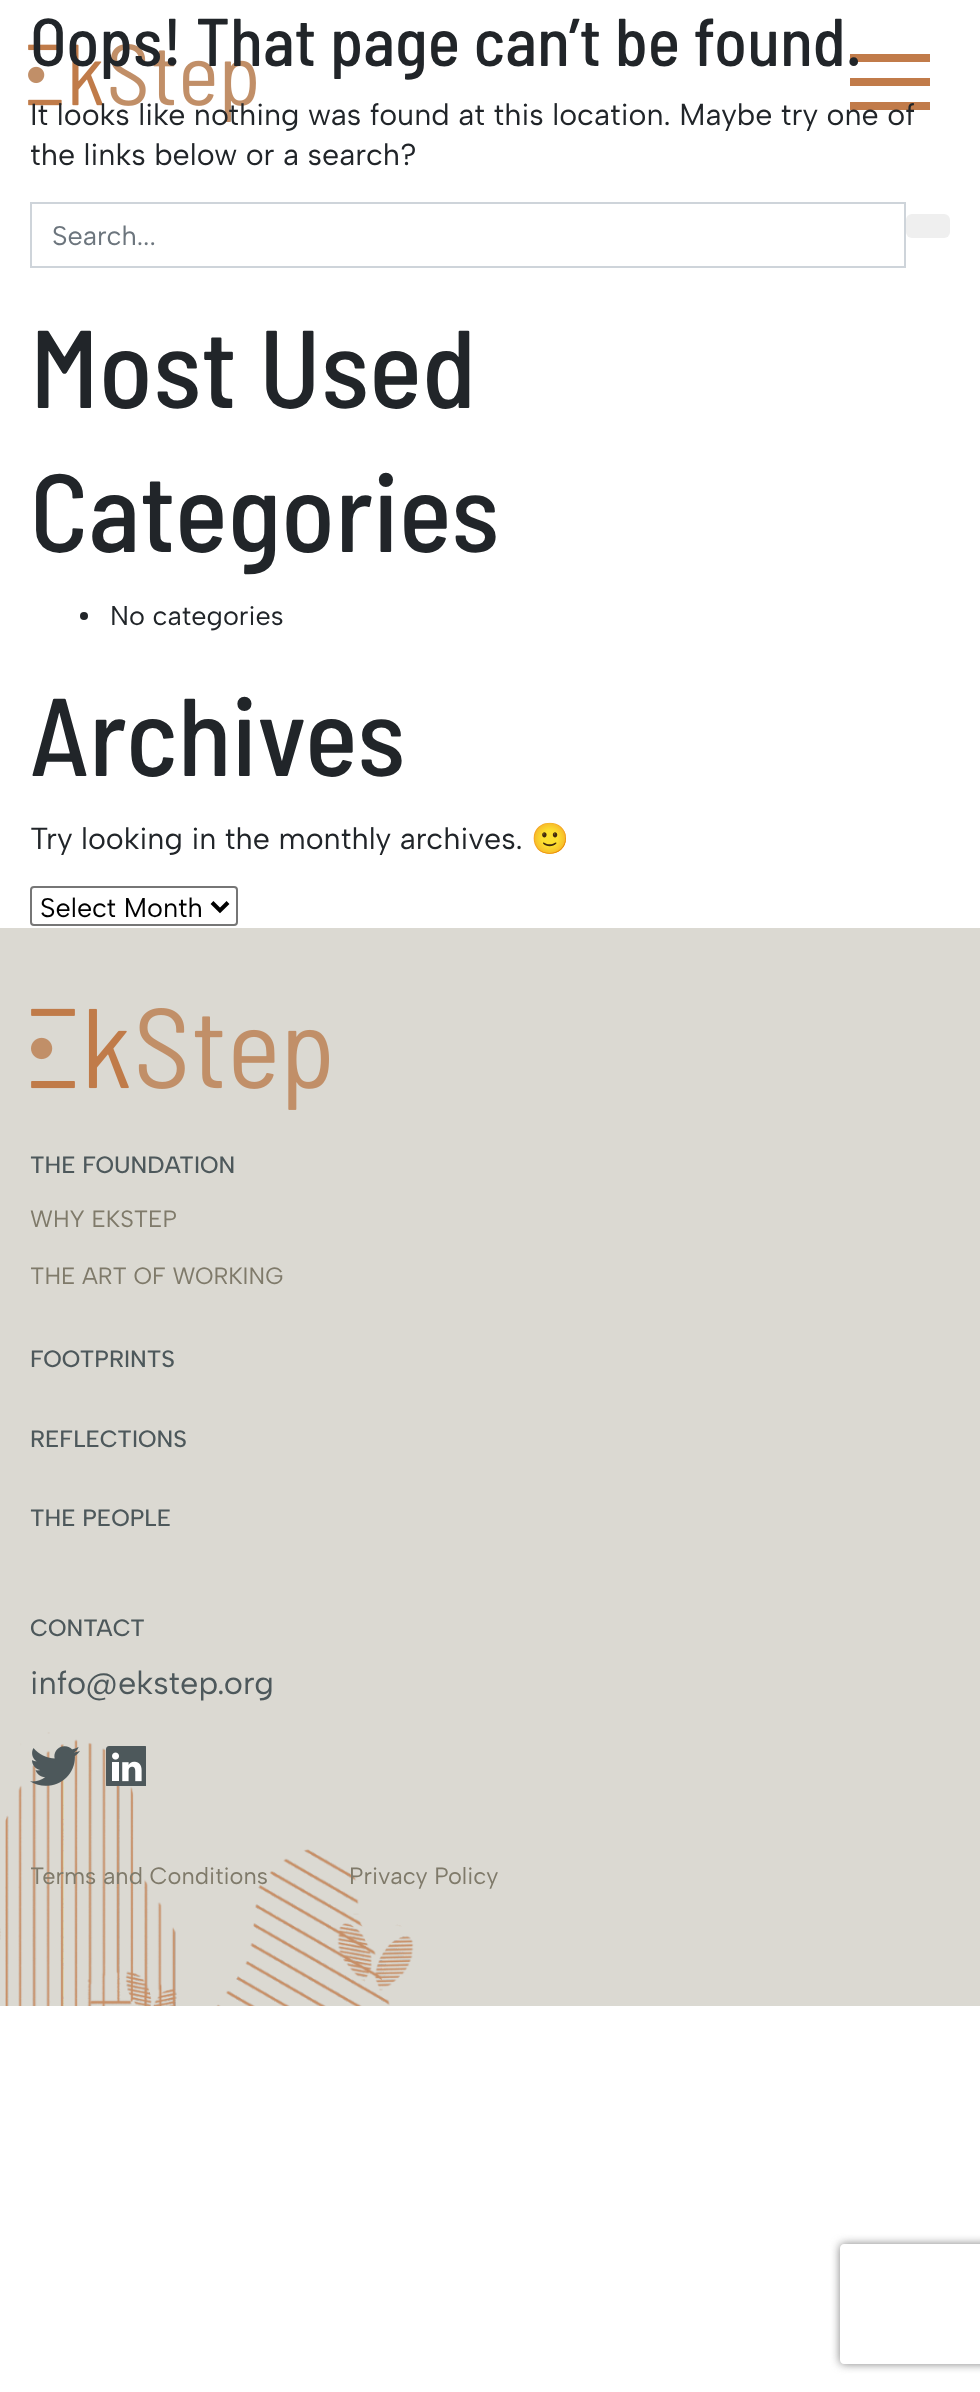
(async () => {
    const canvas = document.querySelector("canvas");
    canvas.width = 980;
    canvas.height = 2392;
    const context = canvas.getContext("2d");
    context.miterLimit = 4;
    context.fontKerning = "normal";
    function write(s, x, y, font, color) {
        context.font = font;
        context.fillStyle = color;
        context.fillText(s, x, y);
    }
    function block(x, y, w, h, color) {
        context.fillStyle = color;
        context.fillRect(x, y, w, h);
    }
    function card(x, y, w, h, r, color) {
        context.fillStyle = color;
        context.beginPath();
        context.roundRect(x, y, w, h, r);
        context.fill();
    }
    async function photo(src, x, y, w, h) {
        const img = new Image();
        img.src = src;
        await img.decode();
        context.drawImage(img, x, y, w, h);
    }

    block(0, 0, 980, 2392, "rgb(255, 255, 255)");
    await photo("media/1.png", 28, 44, 228, 78);
    context.fillStyle = "rgb(193, 123, 74)";
    context.beginPath();
    context.moveTo(850, 54);
    context.lineTo(850, 62);
    context.lineTo(930, 62);
    context.lineTo(930, 54);
    context.closePath();
    context.moveTo(850, 78);
    context.lineTo(850, 86);
    context.lineTo(930, 86);
    context.lineTo(930, 78);
    context.closePath();
    context.moveTo(850, 102);
    context.lineTo(850, 110);
    context.lineTo(930, 110);
    context.lineTo(930, 102);
    context.closePath();
    context.fill();
    write("Oops! That page can’t be found.", 30, 66, "500 67.5px Barlow Semi Condensed", "rgb(33, 37, 41)");
    write("It looks like nothing was found at this location. Maybe try one of", 30, 125, "30.4px Albert Sans", "rgb(33, 37, 41)");
    write("the links below or a search?", 30, 165, "30.4px Albert Sans", "rgb(33, 37, 41)");
    context.strokeStyle = "rgb(206, 212, 218)";
    context.lineWidth = 2;
    context.strokeRect(31, 203, 874, 64);
    write("Search...", 52, 245, "27px Albert Sans", "rgb(108, 117, 125)");
    card(906, 214, 44, 24, 6, "rgb(239, 239, 239)");
    write("Most Used", 30, 408, "500 110.5px Barlow Semi Condensed", "rgb(33, 37, 41)");
    write("Categories", 30, 552, "500 110.5px Barlow Semi Condensed", "rgb(33, 37, 41)");
    context.beginPath();
    context.arc(84, 616, 4, 0, Math.PI * 2);
    context.fill();
    write("No categories", 110, 625, "27px Albert Sans", "rgb(33, 37, 41)");
    write("Archives", 30, 776, "500 110.5px Barlow Semi Condensed", "rgb(33, 37, 41)");
    write("Try looking in the monthly archives.", 30, 849, "30.4px Albert Sans", "rgb(33, 37, 41)");
    write("🙂", 531, 849, "30.4px Noto Color Emoji", "rgb(33, 37, 41)");
    context.beginPath();
    context.roundRect(31, 887, 206, 38, 3);
    context.strokeStyle = "rgb(118, 118, 118)";
    context.stroke();
    context.beginPath();
    context.moveTo(212, 902.5);
    context.lineTo(220, 910.5);
    context.lineTo(228, 902.5);
    context.strokeStyle = "rgb(0, 0, 0)";
    context.lineWidth = 4;
    context.stroke();
    write("Select Month", 40, 917, "27px Albert Sans", "rgb(0, 0, 0)");
    block(0, 928, 980, 1078, "rgb(219, 217, 210)");
    await photo("media/2.png", 0, 1732, 414, 274);
    await photo("media/3.png", 31, 1008, 298, 102);
    write("THE FOUNDATION", 30, 1173, "500 23.6px Albert Sans", "rgb(77, 88, 91)");
    write("WHY EKSTEP", 30, 1227, "23.6px Albert Sans", "rgb(127, 122, 106)");
    write("THE ART OF WORKING", 30, 1284, "23.6px Albert Sans", "rgb(127, 122, 106)");
    write("FOOTPRINTS", 30, 1367, "500 23.6px Albert Sans", "rgb(77, 88, 91)");
    write("REFLECTIONS", 30, 1447, "500 23.6px Albert Sans", "rgb(77, 88, 91)");
    write("THE PEOPLE", 30, 1526, "500 23.6px Albert Sans", "rgb(77, 88, 91)");
    write("CONTACT", 30, 1636, "500 23.6px Albert Sans", "rgb(77, 88, 91)");
    write("info@ekstep.org", 30, 1694, "32.5px Albert Sans", "rgb(77, 88, 91)");
    await photo("media/4.png", 30, 1746, 50, 40);
    await photo("media/5.png", 106, 1746, 40, 40);
    write("Terms and Conditions", 30, 1884, "23.6px Albert Sans", "rgb(127, 122, 106)");
    write("Privacy Policy", 349, 1884, "23.6px Albert Sans", "rgb(127, 122, 106)");
    context.save();
    context.beginPath();
    context.moveTo(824, 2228);
    context.lineTo(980, 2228);
    context.lineTo(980, 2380);
    context.lineTo(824, 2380);
    context.closePath();
    context.moveTo(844, 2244);
    context.lineTo(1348, 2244);
    context.bezierCurveTo(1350, 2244, 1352, 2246, 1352, 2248);
    context.lineTo(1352, 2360);
    context.bezierCurveTo(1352, 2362, 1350, 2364, 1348, 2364);
    context.lineTo(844, 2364);
    context.bezierCurveTo(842, 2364, 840, 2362, 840, 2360);
    context.lineTo(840, 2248);
    context.bezierCurveTo(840, 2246, 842, 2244, 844, 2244);
    context.closePath();
    context.clip("evenodd");
    context.fillStyle = "rgb(128, 128, 128)";
    context.filter = "blur(5px)";
    context.beginPath();
    context.roundRect(840, 2244, 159, 120, 4);
    context.fill();
    context.filter = "none";
    context.restore();
})();
